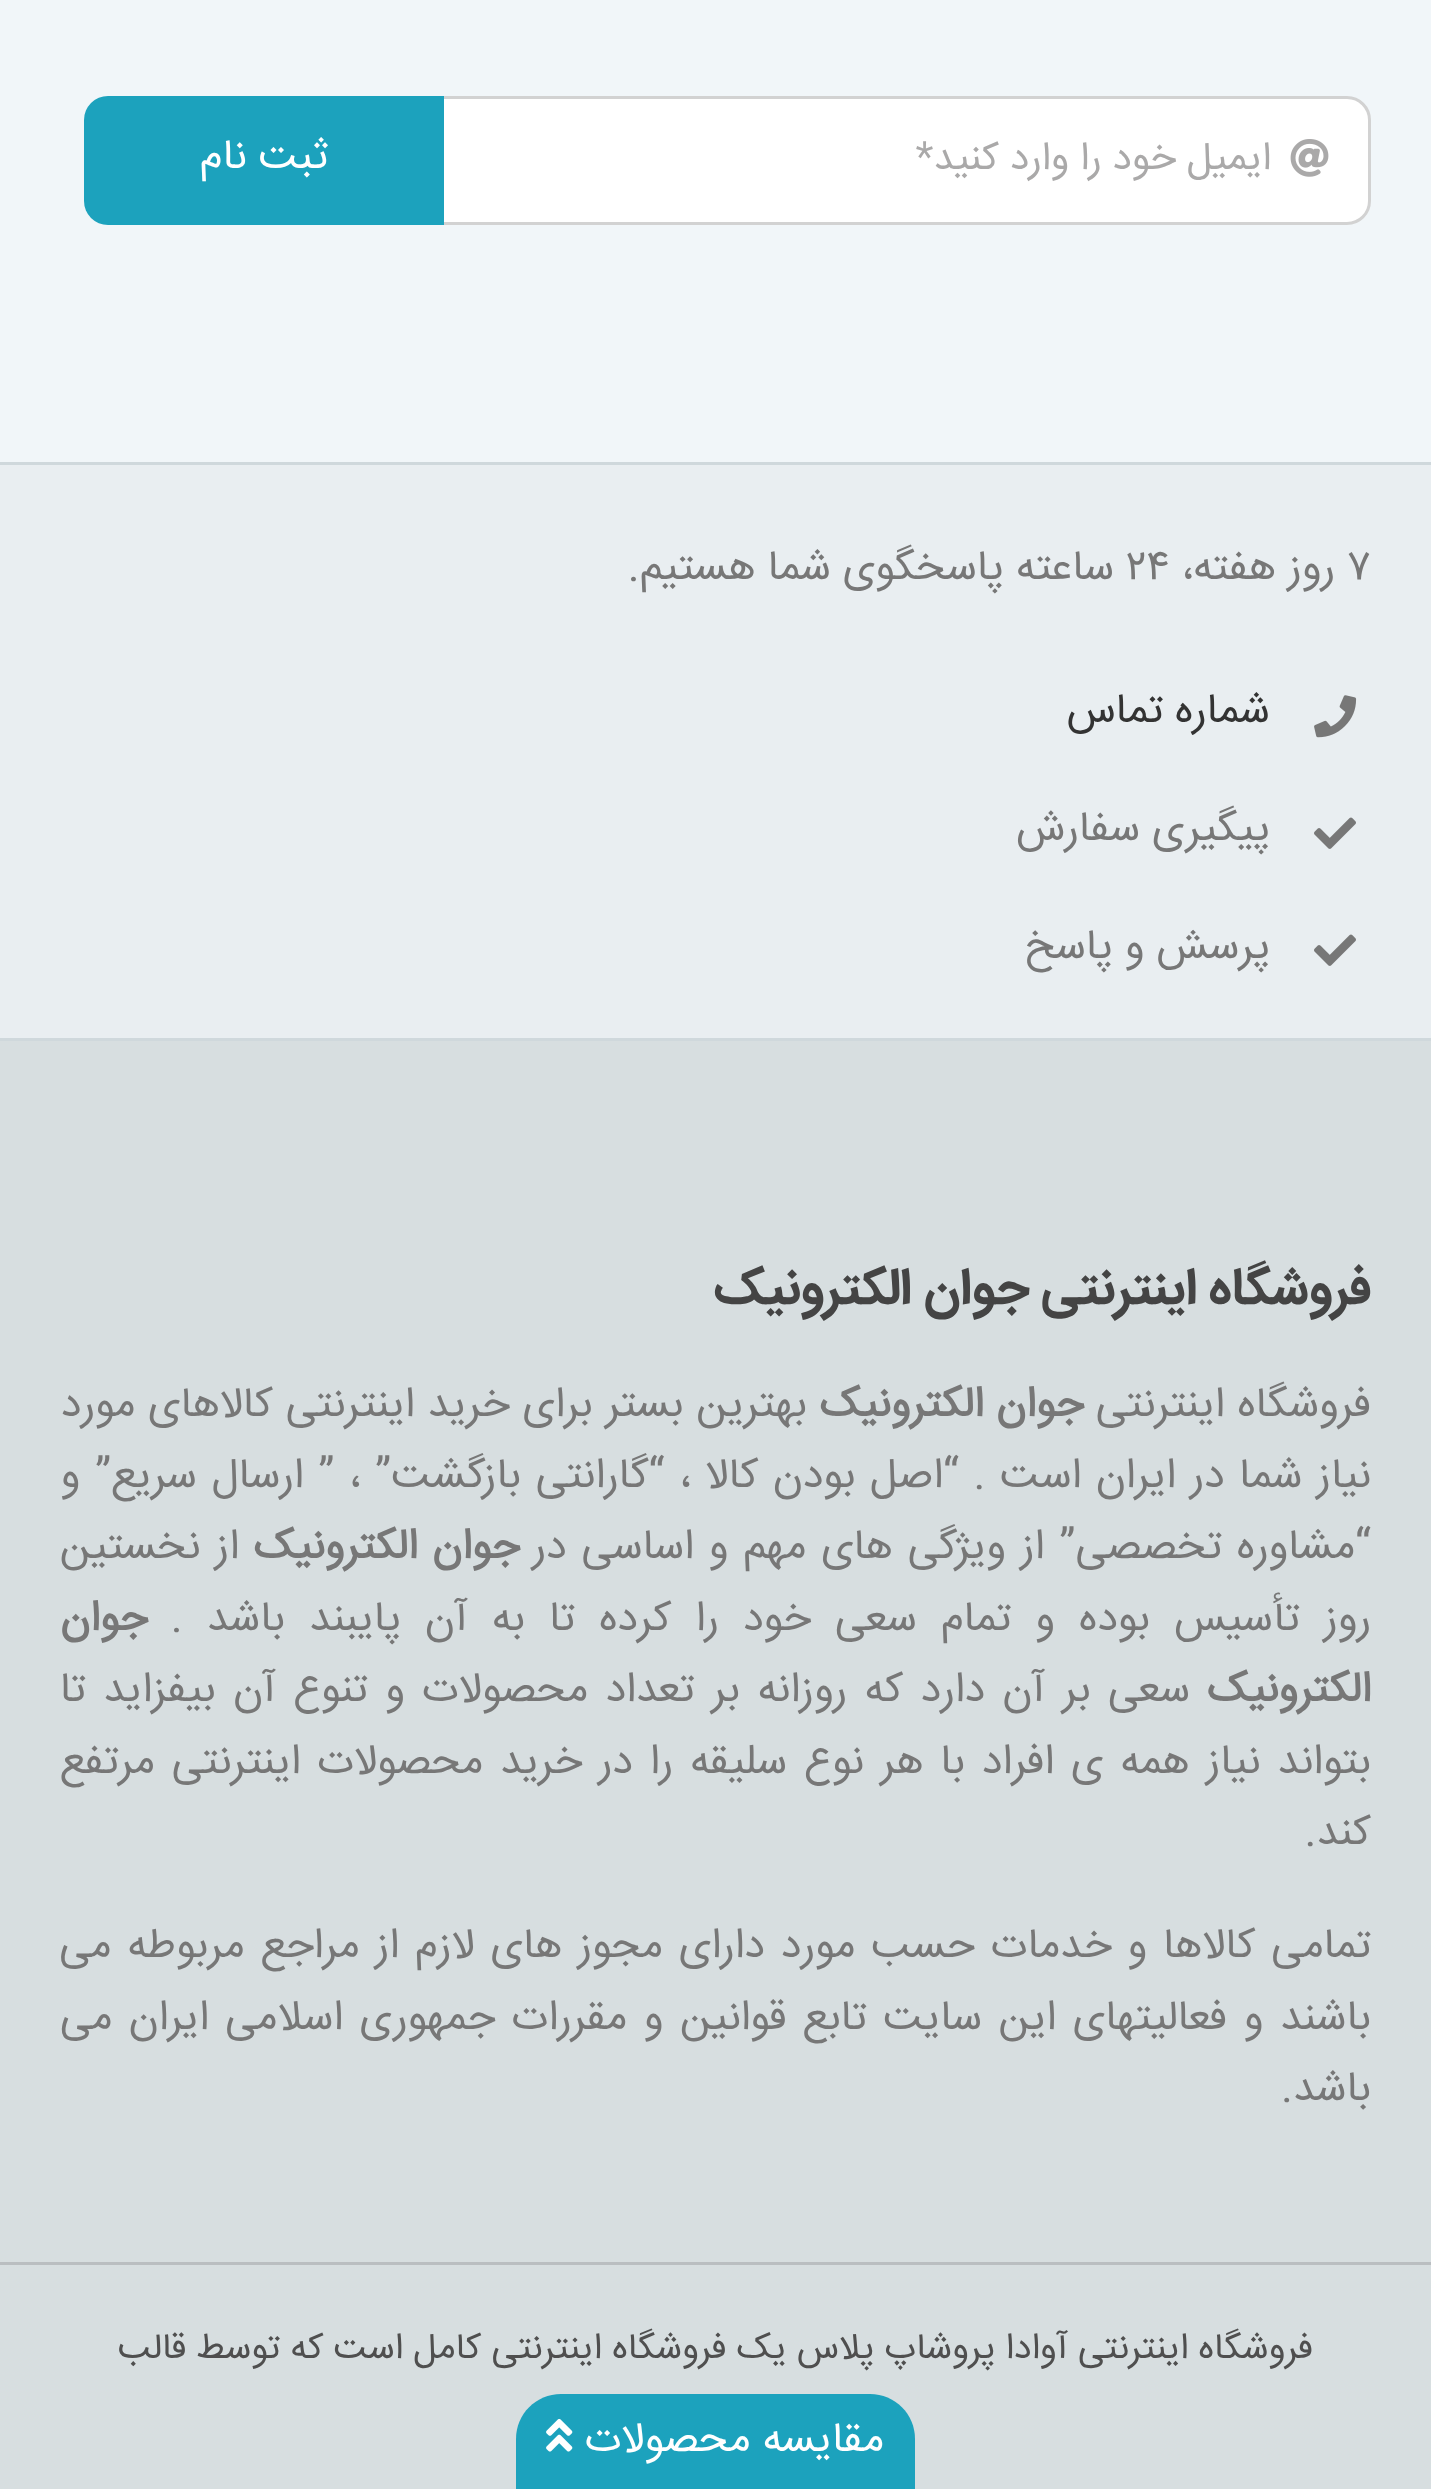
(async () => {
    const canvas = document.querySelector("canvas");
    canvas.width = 1431;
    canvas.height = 2489;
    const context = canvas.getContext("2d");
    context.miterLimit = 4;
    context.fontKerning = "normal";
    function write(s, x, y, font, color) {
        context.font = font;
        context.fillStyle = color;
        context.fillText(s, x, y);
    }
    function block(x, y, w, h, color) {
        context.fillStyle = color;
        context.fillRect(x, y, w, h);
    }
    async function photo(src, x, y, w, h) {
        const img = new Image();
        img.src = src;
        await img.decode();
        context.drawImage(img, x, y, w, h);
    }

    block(0, 0, 1431, 2489, "rgb(241, 246, 249)");
    block(0, 462, 1431, 3, "rgb(207, 216, 220)");
    context.fillStyle = "rgb(255, 255, 255)";
    context.beginPath();
    context.roundRect(388.5, 97.5, 981, 126, 22.5);
    context.fill();
    context.strokeStyle = "rgb(210, 210, 210)";
    context.lineWidth = 3;
    context.stroke();
    await photo("media/1.png", 1290, 139, 39, 38);
    context.direction = "rtl";
    write("ایمیل خود را وارد کنید*", 1271, 169, "39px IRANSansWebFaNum", "rgb(170, 169, 169)");
    context.fillStyle = "rgb(28, 162, 189)";
    context.beginPath();
    context.roundRect(84, 96, 360, 129, [24, 0, 0, 24]);
    context.fill();
    write("ثبت نام", 328, 168, "42px IRANSansWebFaNum", "rgb(255, 255, 255)");
    block(0, 465, 1431, 573, "rgb(233, 238, 241)");
    block(0, 1038, 1431, 3, "rgb(207, 216, 220)");
    context.direction = "ltr";
    write("۷", 1347, 579, "42px IRANSansWebFaNum", "rgb(119, 119, 119)");
    context.direction = "rtl";
    write("روز هفته،", 1335, 579, "42px IRANSansWebFaNum", "rgb(119, 119, 119)");
    context.direction = "ltr";
    write("۲۴", 1126, 579, "42px IRANSansWebFaNum", "rgb(119, 119, 119)");
    context.direction = "rtl";
    write("ساعته پاسخگوی شما هستیم.", 1114, 579, "42px IRANSansWebFaNum", "rgb(119, 119, 119)");
    await photo("media/2.png", 1314, 695, 43, 43);
    write("شماره تماس", 1270, 722, "42px IRANSansWebFaNum", "rgb(51, 51, 51)");
    await photo("media/3.png", 1314, 817, 42, 32);
    write("پیگیری سفارش", 1270, 840, "42px IRANSansWebFaNum", "rgb(119, 119, 119)");
    await photo("media/3.png", 1314, 934, 42, 32);
    write("پرسش و پاسخ", 1270, 958, "42px IRANSansWebFaNum", "rgb(119, 119, 119)");
    block(0, 1041, 1431, 1221, "rgb(215, 222, 224)");
    block(0, 2262, 1431, 3, "rgb(186, 190, 193)");
    write("فروشگاه اینترنتی جوان الکترونیک", 1371, 1303, "bold 51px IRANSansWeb", "rgb(68, 68, 68)");
    context.wordSpacing = "1px";
    write("فروشگاه اینترنتی", 1371, 1416, "42px IRANSansWebFaNum", "rgb(119, 119, 119)");
    write("جوان الکترونیک", 1083, 1416, "bold 42px IRANSansWebFaNum", "rgb(119, 119, 119)");
    write("بهترین بستر برای خرید اینترنتی کالاهای مورد", 807, 1416, "42px IRANSansWebFaNum", "rgb(119, 119, 119)");
    context.wordSpacing = "2.75px";
    write("نیاز شما در ایران است . “اصل بودن کالا ، “گارانتی بازگشت” ، ” ارسال سریع” و", 1371, 1487, "42px IRANSansWebFaNum", "rgb(119, 119, 119)");
    context.wordSpacing = "3px";
    write("“مشاوره تخصصی” از ویژگی های مهم و اساسی در", 1371, 1558, "42px IRANSansWebFaNum", "rgb(119, 119, 119)");
    write("جوان الکترونیک", 519, 1558, "bold 42px IRANSansWebFaNum", "rgb(119, 119, 119)");
    write("از نخستین", 239, 1558, "42px IRANSansWebFaNum", "rgb(119, 119, 119)");
    context.wordSpacing = "12.25px";
    write("روز تأسیس بوده و تمام سعی خود را کرده تا به آن پایبند باشد .", 1371, 1630, "42px IRANSansWebFaNum", "rgb(119, 119, 119)");
    context.wordSpacing = "0px";
    write("جوان", 147, 1630, "bold 42px IRANSansWebFaNum", "rgb(119, 119, 119)");
    write("الکترونیک", 1371, 1701, "bold 42px IRANSansWebFaNum", "rgb(119, 119, 119)");
    context.wordSpacing = "5.6px";
    write("سعی بر آن دارد که روزانه بر تعداد محصولات و تنوع آن بیفزاید تا", 1190, 1701, "42px IRANSansWebFaNum", "rgb(119, 119, 119)");
    context.wordSpacing = "5px";
    write("بتواند نیاز همه ی افراد با هر نوع سلیقه را در خرید محصولات اینترنتی مرتفع", 1371, 1773, "42px IRANSansWebFaNum", "rgb(119, 119, 119)");
    context.wordSpacing = "0px";
    write("کند.", 1371, 1844, "42px IRANSansWebFaNum", "rgb(119, 119, 119)");
    context.wordSpacing = "4.1px";
    write("تمامی کالاها و خدمات حسب مورد دارای مجوز های لازم از مراجع مربوطه می", 1371, 1957, "42px IRANSansWebFaNum", "rgb(119, 119, 119)");
    context.wordSpacing = "4.75px";
    write("باشند و فعالیتهای این سایت تابع قوانین و مقررات جمهوری اسلامی ایران می", 1371, 2029, "42px IRANSansWebFaNum", "rgb(119, 119, 119)");
    context.wordSpacing = "0px";
    write("باشد.", 1371, 2100, "42px IRANSansWebFaNum", "rgb(119, 119, 119)");
    block(0, 2265, 1431, 224, "rgb(215, 222, 224)");
    write("فروشگاه اینترنتی آوادا پروشاپ پلاس یک فروشگاه اینترنتی کامل است که توسط قالب", 1313, 2358, "36px IRANSansWebFaNum", "rgb(79, 79, 79)");
    context.fillStyle = "rgb(28, 162, 189)";
    context.beginPath();
    context.moveTo(561, 2394);
    context.lineTo(870, 2394);
    context.bezierCurveTo(895, 2394, 915, 2414, 915, 2439);
    context.lineTo(915, 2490);
    context.lineTo(516, 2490);
    context.lineTo(516, 2439);
    context.bezierCurveTo(516, 2414, 536, 2394, 561, 2394);
    context.closePath();
    context.fill();
    write("مقایسه محصولات", 884, 2451, "42px IRANSansWebFaNum", "rgb(255, 255, 255)");
    await photo("media/4.png", 546, 2418, 27, 34);
})();
